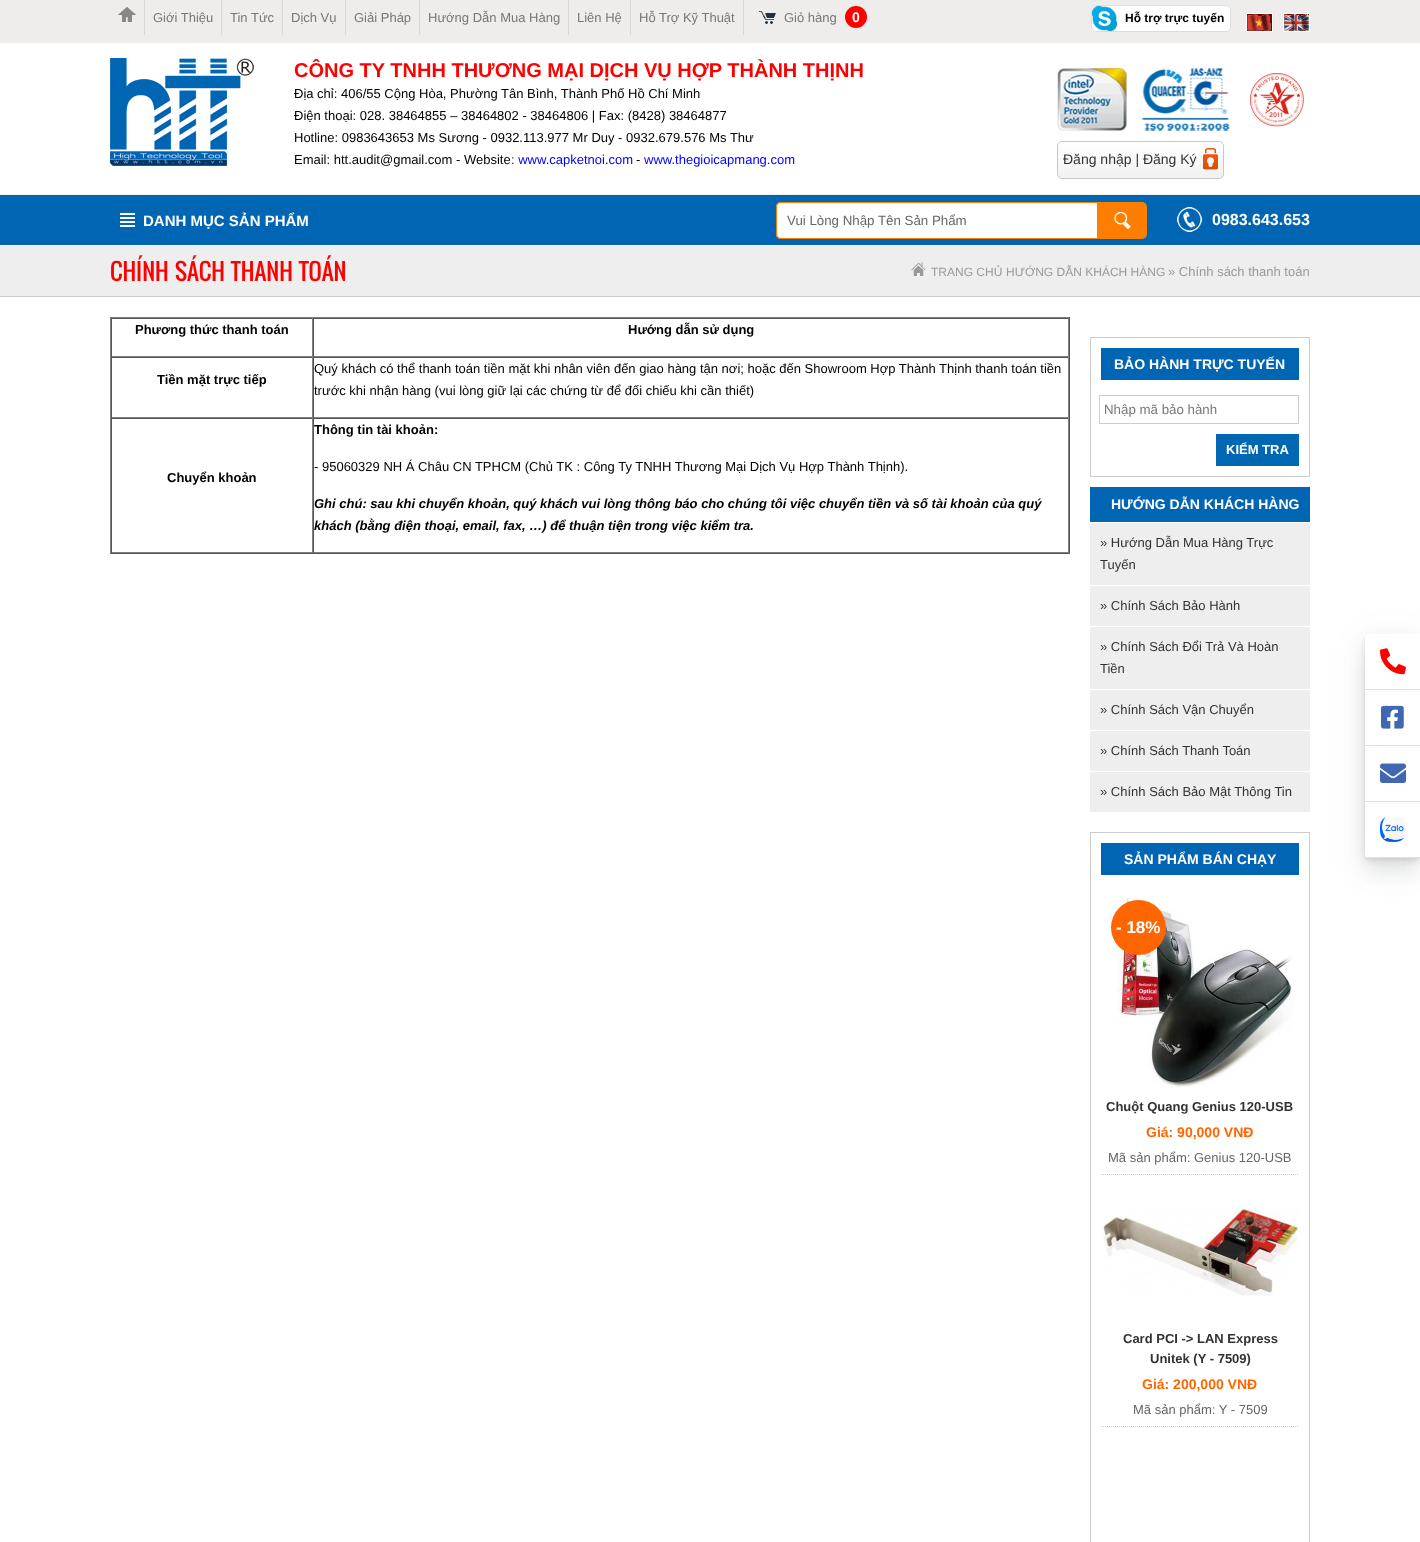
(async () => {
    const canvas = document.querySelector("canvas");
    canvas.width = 1420;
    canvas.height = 1542;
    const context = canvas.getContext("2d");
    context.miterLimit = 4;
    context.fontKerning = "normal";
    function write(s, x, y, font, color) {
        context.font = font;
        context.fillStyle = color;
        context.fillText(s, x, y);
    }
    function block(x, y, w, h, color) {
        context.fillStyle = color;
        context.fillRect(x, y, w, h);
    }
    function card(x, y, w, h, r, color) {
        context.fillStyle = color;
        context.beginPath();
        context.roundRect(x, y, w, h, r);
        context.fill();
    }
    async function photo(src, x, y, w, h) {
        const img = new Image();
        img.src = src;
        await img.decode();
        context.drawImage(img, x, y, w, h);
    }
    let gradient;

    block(0, 0, 1420, 1542, "rgb(255, 255, 255)");
    block(0, 0, 1420, 43, "rgb(239, 236, 236)");
    block(144, 0, 1, 35, "rgb(216, 216, 216)");
    await photo("media/1.png", 118, 7, 18, 15);
    block(221, 0, 1, 35, "rgb(216, 216, 216)");
    write("Giới Thiệu", 153, 22, "13px Liberation Sans", "rgb(119, 119, 119)");
    block(282, 0, 1, 35, "rgb(216, 216, 216)");
    write("Tin Tức", 230, 22, "13px Liberation Sans", "rgb(119, 119, 119)");
    block(345, 0, 1, 35, "rgb(216, 216, 216)");
    write("Dịch Vụ", 291, 22, "13px Liberation Sans", "rgb(119, 119, 119)");
    block(419, 0, 1, 35, "rgb(216, 216, 216)");
    write("Giải Pháp", 354, 22, "13px Liberation Sans", "rgb(119, 119, 119)");
    block(568, 0, 1, 35, "rgb(216, 216, 216)");
    write("Hướng Dẫn Mua Hàng", 428, 22, "13px Liberation Sans", "rgb(119, 119, 119)");
    block(630, 0, 1, 35, "rgb(216, 216, 216)");
    write("Liên Hệ", 577, 22, "13px Liberation Sans", "rgb(119, 119, 119)");
    block(743, 0, 1, 35, "rgb(216, 216, 216)");
    write("Hỗ Trợ Kỹ Thuật", 639, 22, "13px Liberation Sans", "rgb(119, 119, 119)");
    await photo("media/2.png", 759, 11, 17, 13);
    write("Giỏ hàng", 784, 22, "13px Liberation Sans", "rgb(119, 119, 119)");
    context.fillStyle = "rgb(255, 0, 0)";
    context.beginPath();
    context.arc(856, 17, 11, 0, Math.PI * 2);
    context.fill();
    write("0", 852, 22, "bold 14px Liberation Sans", "rgb(255, 255, 255)");
    card(1091, 5, 140, 27, 5, "rgb(255, 255, 255)");
    await photo("media/3.png", 1092, 6, 25, 25);
    context.beginPath();
    context.roundRect(1091.5, 5.5, 139, 26, 4.5);
    context.strokeStyle = "rgb(221, 221, 221)";
    context.stroke();
    write("Hỗ trợ trực tuyến", 1125, 22, "bold 12px Liberation Sans", "rgb(0, 0, 0)");
    context.strokeStyle = "rgb(255, 255, 255)";
    context.strokeRect(1246.5, 13.5, 26, 18);
    await photo("media/4.png", 1247, 14, 25, 17);
    context.strokeRect(1283.5, 13.5, 26, 18);
    await photo("media/5.png", 1284, 14, 25, 17);
    block(0, 194, 1420, 1, "rgb(238, 238, 238)");
    await photo("media/6.png", 110, 58, 144, 108);
    write("CÔNG TY TNHH THƯƠNG MẠI DỊCH VỤ HỢP THÀNH THỊNH", 294, 77, "bold 20px Liberation Sans", "rgb(255, 0, 0)");
    write("Địa chỉ: 406/55 Cộng Hòa, Phường Tân Bình, Thành Phố Hồ Chí Minh", 294, 98, "13px Liberation Sans", "rgb(0, 0, 0)");
    write("Điện thoại: 028. 38464855 – 38464802 - 38464806 | Fax: (8428) 38464877", 294, 120, "13px Liberation Sans", "rgb(0, 0, 0)");
    write("Hotline: 0983643653 Ms Sương - 0932.113.977 Mr Duy - 0932.679.576 Ms Thư", 294, 142, "13px Liberation Sans", "rgb(0, 0, 0)");
    write("Email: htt.audit@gmail.com - Website", 294, 164, "13px Liberation Sans", "rgb(0, 0, 0)");
    write(": www.capketnoi.com", 511, 164, "13px Liberation Sans", "rgb(0, 0, 238)");
    write("-", 636, 164, "13px Liberation Sans", "rgb(0, 0, 0)");
    write("www.thegioicapmang.com", 644, 164, "13px Liberation Sans", "rgb(0, 0, 255)");
    await photo("media/7.png", 1057, 68, 70, 63);
    await photo("media/8.png", 1142, 68, 88, 63);
    await photo("media/9.png", 1250, 73, 54, 54);
    context.save();
    context.beginPath();
    context.roundRect(1057, 141, 167, 38, 5);
    context.clip();
    gradient = context.createLinearGradient(1141, 142, 1141, 178);
    gradient.addColorStop(0, "rgb(255, 255, 255)");
    gradient.addColorStop(1, "rgb(241, 241, 241)");
    context.fillStyle = gradient;
    context.fillRect(1057, 142, 167, 36);
    context.restore();
    context.beginPath();
    context.roundRect(1057.5, 141.5, 166, 37, 4.5);
    context.strokeStyle = "rgb(200, 200, 200)";
    context.stroke();
    write("Đăng nhập | Đăng Ký", 1063, 164, "14px Liberation Sans", "rgb(50, 50, 50)");
    await photo("media/10.png", 1203, 148, 15, 22);
    block(0, 195, 1420, 50, "rgb(0, 102, 179)");
    await photo("media/11.png", 120, 213, 15, 14);
    write("DANH MỤC SẢN PHẨM", 143, 226, "bold 15px Liberation Sans", "rgb(255, 255, 255)");
    context.beginPath();
    context.roundRect(776, 202, 321, 37, [5, 0, 0, 5]);
    context.fill();
    context.fillStyle = "rgb(255, 126, 0)";
    context.beginPath();
    context.moveTo(781, 202);
    context.lineTo(1097, 202);
    context.lineTo(1097, 239);
    context.lineTo(781, 239);
    context.bezierCurveTo(778, 239, 776, 237, 776, 234);
    context.lineTo(776, 207);
    context.bezierCurveTo(776, 204, 778, 202, 781, 202);
    context.closePath();
    context.moveTo(781, 203);
    context.lineTo(1097, 203);
    context.lineTo(1097, 238);
    context.lineTo(781, 238);
    context.bezierCurveTo(779, 238, 777, 236, 777, 234);
    context.lineTo(777, 207);
    context.bezierCurveTo(777, 205, 779, 203, 781, 203);
    context.closePath();
    context.fill("evenodd");
    write("Vui Lòng Nhập Tên Sản Phẩm", 787, 225, "13.3px Liberation Sans", "rgb(102, 102, 102)");
    context.fillStyle = "rgb(255, 126, 0)";
    context.beginPath();
    context.roundRect(1097, 202, 50, 37, [0, 5, 5, 0]);
    context.fill();
    await photo("media/12.png", 1114, 212, 17, 17);
    await photo("media/13.png", 1177, 207, 25, 25);
    write("0983.643.653", 1212, 225, "bold 16px Liberation Sans", "rgb(255, 255, 255)");
    block(0, 246, 1420, 50, "rgb(238, 238, 238)");
    block(0, 296, 1420, 1, "rgb(204, 204, 204)");
    write("CHÍNH SÁCH THANH TOÁN", 110, 281, "23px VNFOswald", "rgb(255, 0, 0)");
    await photo("media/14.png", 911, 262, 15, 14);
    write("TRANG CHỦ", 931, 276, "12px Liberation Sans", "rgb(153, 153, 153)");
    write("HƯỚNG DẪN KHÁCH HÀNG", 1006, 276, "12px Liberation Sans", "rgb(153, 153, 153)");
    write("» Chính sách thanh toán", 1168, 276, "13px Liberation Sans", "rgb(153, 153, 153)");
    block(110, 317, 960, 1, "rgb(128, 128, 128)");
    block(1069, 317, 1, 237, "rgb(85, 85, 85)");
    block(110, 553, 960, 1, "rgb(85, 85, 85)");
    block(110, 317, 1, 237, "rgb(128, 128, 128)");
    block(111, 318, 958, 1, "rgb(85, 85, 85)");
    block(312, 318, 1, 39, "rgb(128, 128, 128)");
    block(111, 356, 202, 1, "rgb(128, 128, 128)");
    block(111, 318, 1, 39, "rgb(85, 85, 85)");
    write("Phương thức thanh toán", 135, 334, "bold 13px Liberation Sans", "rgb(0, 0, 0)");
    block(1068, 318, 1, 39, "rgb(128, 128, 128)");
    block(313, 356, 756, 1, "rgb(128, 128, 128)");
    block(313, 318, 1, 39, "rgb(85, 85, 85)");
    write("Hướng dẫn sử dụng", 628, 334, "bold 13px Liberation Sans", "rgb(0, 0, 0)");
    block(111, 357, 958, 1, "rgb(85, 85, 85)");
    block(312, 357, 1, 61, "rgb(128, 128, 128)");
    block(111, 417, 202, 1, "rgb(128, 128, 128)");
    block(111, 357, 1, 61, "rgb(85, 85, 85)");
    write("Tiền mặt trực tiếp", 157, 384, "bold 13px Liberation Sans", "rgb(0, 0, 0)");
    block(1068, 357, 1, 61, "rgb(128, 128, 128)");
    block(313, 417, 756, 1, "rgb(128, 128, 128)");
    block(313, 357, 1, 61, "rgb(85, 85, 85)");
    write("Quý khách có thể thanh toán tiền mặt khi nhân viên đến giao hàng tận nơi; hoặc đến Showroom Hợp Thành Thịnh thanh toán tiền", 314, 373, "13px Liberation Sans", "rgb(0, 0, 0)");
    write("trước khi nhận hàng (vui lòng giữ lại các chứng từ để đối chiếu khi cần thiết)", 314, 395, "13px Liberation Sans", "rgb(0, 0, 0)");
    block(111, 418, 958, 1, "rgb(85, 85, 85)");
    block(312, 418, 1, 135, "rgb(128, 128, 128)");
    block(111, 552, 202, 1, "rgb(128, 128, 128)");
    block(111, 418, 1, 135, "rgb(85, 85, 85)");
    write("Chuyển khoản", 167, 482, "bold 13px Liberation Sans", "rgb(0, 0, 0)");
    block(1068, 418, 1, 135, "rgb(128, 128, 128)");
    block(313, 552, 756, 1, "rgb(128, 128, 128)");
    block(313, 418, 1, 135, "rgb(85, 85, 85)");
    write("Thông tin tài khoản:", 314, 434, "bold 13px Liberation Sans", "rgb(0, 0, 0)");
    write("- 95060329 NH Á Châu CN TPHCM (Chủ TK : Công Ty TNHH Thương Mại Dịch Vụ Hợp Thành Thịnh).", 314, 471, "13px Liberation Sans", "rgb(0, 0, 0)");
    write("Ghi chú: sau khi chuyển khoản, quý khách vui lòng thông báo cho chúng tôi việc chuyển tiền và số tài khoản của quý", 314, 508, "italic bold 13px Liberation Sans", "rgb(0, 0, 0)");
    write("khách (bằng điện thoại, email, fax, …) để thuận tiện trong việc kiểm tra.", 314, 530, "italic bold 13px Liberation Sans", "rgb(0, 0, 0)");
    context.strokeStyle = "rgb(204, 204, 204)";
    context.strokeRect(1090.5, 337.5, 219, 139);
    block(1101, 348, 198, 32, "rgb(0, 102, 179)");
    write("BẢO HÀNH TRỰC TUYẾN", 1114, 369, "bold 14px Liberation Sans", "rgb(255, 255, 255)");
    context.strokeRect(1099.5, 395.5, 199, 28);
    write("Nhập mã bảo hành", 1104, 414, "13.3px Liberation Sans", "rgb(119, 119, 119)");
    block(1216, 434, 83, 32, "rgb(0, 103, 179)");
    write("KIỂM TRA", 1226, 454, "bold 13px Liberation Sans", "rgb(255, 255, 255)");
    block(1090, 487, 220, 35, "rgb(0, 102, 179)");
    write("HƯỚNG DẪN KHÁCH HÀNG", 1111, 509, "bold 14px Liberation Sans", "rgb(255, 255, 255)");
    block(1090, 523, 220, 62, "rgb(238, 238, 238)");
    write("» Hướng Dẫn Mua Hàng Trực", 1100, 547, "13px Liberation Sans", "rgb(50, 50, 50)");
    write("Tuyến", 1100, 569, "13px Liberation Sans", "rgb(50, 50, 50)");
    block(1090, 586, 220, 40, "rgb(238, 238, 238)");
    write("» Chính Sách Bảo Hành", 1100, 610, "13px Liberation Sans", "rgb(50, 50, 50)");
    block(1090, 627, 220, 62, "rgb(238, 238, 238)");
    write("» Chính Sách Đổi Trả Và Hoàn", 1100, 651, "13px Liberation Sans", "rgb(50, 50, 50)");
    write("Tiền", 1100, 673, "13px Liberation Sans", "rgb(50, 50, 50)");
    block(1090, 690, 220, 40, "rgb(238, 238, 238)");
    write("» Chính Sách Vận Chuyển", 1100, 714, "13px Liberation Sans", "rgb(50, 50, 50)");
    block(1090, 731, 220, 40, "rgb(238, 238, 238)");
    write("» Chính Sách Thanh Toán", 1100, 755, "13px Liberation Sans", "rgb(50, 50, 50)");
    block(1090, 772, 220, 40, "rgb(238, 238, 238)");
    write("» Chính Sách Bảo Mật Thông Tin", 1100, 796, "13px Liberation Sans", "rgb(50, 50, 50)");
    context.strokeRect(1090.5, 832.5, 219, 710);
    block(1101, 843, 198, 32, "rgb(0, 102, 179)");
    write("SẢN PHẨM BÁN CHẠY", 1124, 864, "bold 14px Liberation Sans", "rgb(255, 255, 255)");
    context.beginPath();
    context.moveTo(1101, 1174.5);
    context.lineTo(1299, 1174.5);
    context.setLineDash([1, 1]);
    context.stroke();
    await photo("media/15.png", 1117, 898, 176, 190);
    context.fillStyle = "rgb(255, 102, 0)";
    context.beginPath();
    context.arc(1138.5, 927.5, 27.5, 0, Math.PI * 2);
    context.fill();
    write("- 18%", 1116, 933, "bold 17px Liberation Sans", "rgb(255, 255, 255)");
    write("Chuột Quang Genius 120-USB", 1106, 1111, "bold 13px Liberation Sans", "rgb(50, 50, 50)");
    write("Giá: 90,000 VNĐ", 1146, 1137, "bold 14px Liberation Sans", "rgb(255, 102, 0)");
    write("Mã sản phẩm: Genius 120-USB", 1108, 1162, "13px Liberation Sans", "rgb(102, 102, 102)");
    context.beginPath();
    context.moveTo(1101, 1426.5);
    context.lineTo(1299, 1426.5);
    context.stroke();
    await photo("media/16.png", 1101, 1205, 200, 91);
    write("Card PCI -> LAN Express", 1123, 1343, "bold 13px Liberation Sans", "rgb(50, 50, 50)");
    write("Unitek (Y - 7509)", 1150, 1363, "bold 13px Liberation Sans", "rgb(50, 50, 50)");
    write("Giá: 200,000 VNĐ", 1142, 1389, "bold 14px Liberation Sans", "rgb(255, 102, 0)");
    write("Mã sản phẩm: Y - 7509", 1133, 1414, "13px Liberation Sans", "rgb(102, 102, 102)");
    context.fillStyle = "rgba(90, 97, 105, 0.1)";
    context.filter = "blur(1.5px)";
    context.beginPath();
    context.roundRect(1365, 636, 55, 224, 4);
    context.fill();
    context.filter = "none";
    context.fillStyle = "rgba(90, 97, 105, 0.12)";
    context.filter = "blur(4px)";
    context.beginPath();
    context.roundRect(1365, 638, 55, 224, 4);
    context.fill();
    context.filter = "none";
    context.fillStyle = "rgba(90, 97, 105, 0.1)";
    context.filter = "blur(11px)";
    context.beginPath();
    context.roundRect(1365, 649, 55, 224, 4);
    context.fill();
    context.filter = "none";
    context.filter = "blur(17.5px)";
    context.beginPath();
    context.roundRect(1365, 642, 55, 224, 4);
    context.fill();
    context.filter = "none";
    context.fillStyle = "rgb(255, 255, 255)";
    context.beginPath();
    context.roundRect(1365, 634, 55, 224, [4, 0, 0, 4]);
    context.fill();
    block(1365, 689, 55, 1, "rgb(222, 226, 230)");
    await photo("media/17.png", 1380, 648, 26, 27);
    block(1365, 745, 55, 1, "rgb(222, 226, 230)");
    await photo("media/18.png", 1381, 705, 23, 24);
    block(1365, 801, 55, 1, "rgb(222, 226, 230)");
    await photo("media/19.png", 1380, 763, 26, 20);
    context.save();
    context.beginPath();
    context.roundRect(1365, 634, 55, 224, [4, 0, 0, 4]);
    context.clip();
    block(1365, 857, 55, 1, "rgb(222, 226, 230)");
    context.restore();
    await photo("media/20.png", 1379, 817, 27, 25);
})();
